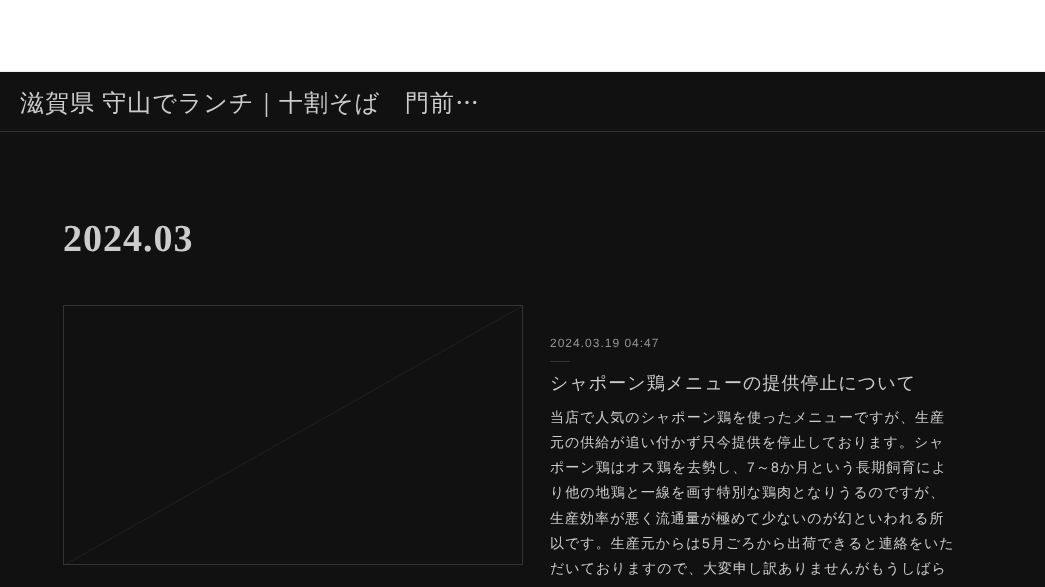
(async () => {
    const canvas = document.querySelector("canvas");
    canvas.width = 1045;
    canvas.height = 587;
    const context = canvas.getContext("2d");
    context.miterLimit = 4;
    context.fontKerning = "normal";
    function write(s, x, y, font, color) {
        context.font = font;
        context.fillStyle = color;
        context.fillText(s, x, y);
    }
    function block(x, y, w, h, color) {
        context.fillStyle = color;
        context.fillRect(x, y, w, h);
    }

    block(0, 0, 1045, 587, "rgb(17, 17, 17)");
    block(0, 0, 1045, 71, "rgb(255, 255, 255)");
    block(0, 71, 1045, 1, "rgb(238, 238, 238)");
    block(0, 131, 1045, 1, "rgb(51, 51, 51)");
    context.letterSpacing = "1px";
    context.wordSpacing = "-1px";
    write("滋賀県 守山でランチ｜十割そば　門前…", 20, 111, "500 24px WenQuanYi Zen Hei", "rgb(204, 204, 204)");
    context.wordSpacing = "0px";
    write("2024.03", 63, 251, "bold 38px Liberation Serif", "rgb(204, 204, 204)");
    context.strokeStyle = "rgb(51, 51, 51)";
    context.strokeRect(63.5, 305.5, 459, 259);
    context.fillStyle = "rgb(51, 51, 51)";
    context.beginPath();
    context.moveTo(64, 565);
    context.lineTo(522, 306);
    context.lineTo(521, 307);
    context.lineTo(63, 566);
    context.closePath();
    context.fill();
    write("2024.03.19 04:47", 550, 347, "12px Liberation Sans", "rgb(148, 148, 148)");
    block(550, 361, 20, 1, "rgb(51, 51, 51)");
    write("シャポーン鶏メニューの提供停止について", 550, 389, "500 18px WenQuanYi Zen Hei", "rgb(204, 204, 204)");
    write("当店で人気のシャポーン鶏を使ったメニューですが、生産", 550, 422, "500 14px WenQuanYi Zen Hei", "rgb(204, 204, 204)");
    write("元の供給が追い付かず只今提供を停止しております。シャ", 550, 447, "500 14px WenQuanYi Zen Hei", "rgb(204, 204, 204)");
    write("ポーン鶏はオス鶏を去勢し、", 550, 472, "500 14px WenQuanYi Zen Hei", "rgb(204, 204, 204)");
    write("7", 747, 472, "14px Liberation Sans", "rgb(204, 204, 204)");
    write("～", 756, 472, "500 14px WenQuanYi Zen Hei", "rgb(204, 204, 204)");
    write("8", 771, 472, "14px Liberation Sans", "rgb(204, 204, 204)");
    write("か月という長期飼育によ", 780, 472, "500 14px WenQuanYi Zen Hei", "rgb(204, 204, 204)");
    write("り他の地鶏と一線を画す特別な鶏肉となりうるのですが、", 550, 497, "500 14px WenQuanYi Zen Hei", "rgb(204, 204, 204)");
    write("生産効率が悪く流通量が極めて少ないのが幻といわれる所", 550, 523, "500 14px WenQuanYi Zen Hei", "rgb(204, 204, 204)");
    write("以です。生産元からは", 550, 548, "500 14px WenQuanYi Zen Hei", "rgb(204, 204, 204)");
    write("5", 702, 548, "14px Liberation Sans", "rgb(204, 204, 204)");
    write("月ごろから出荷できると連絡をいた", 711, 548, "500 14px WenQuanYi Zen Hei", "rgb(204, 204, 204)");
    write("だいておりますので、大変申し訳ありませんがもうしばら", 550, 573, "500 14px WenQuanYi Zen Hei", "rgb(204, 204, 204)");
})();
